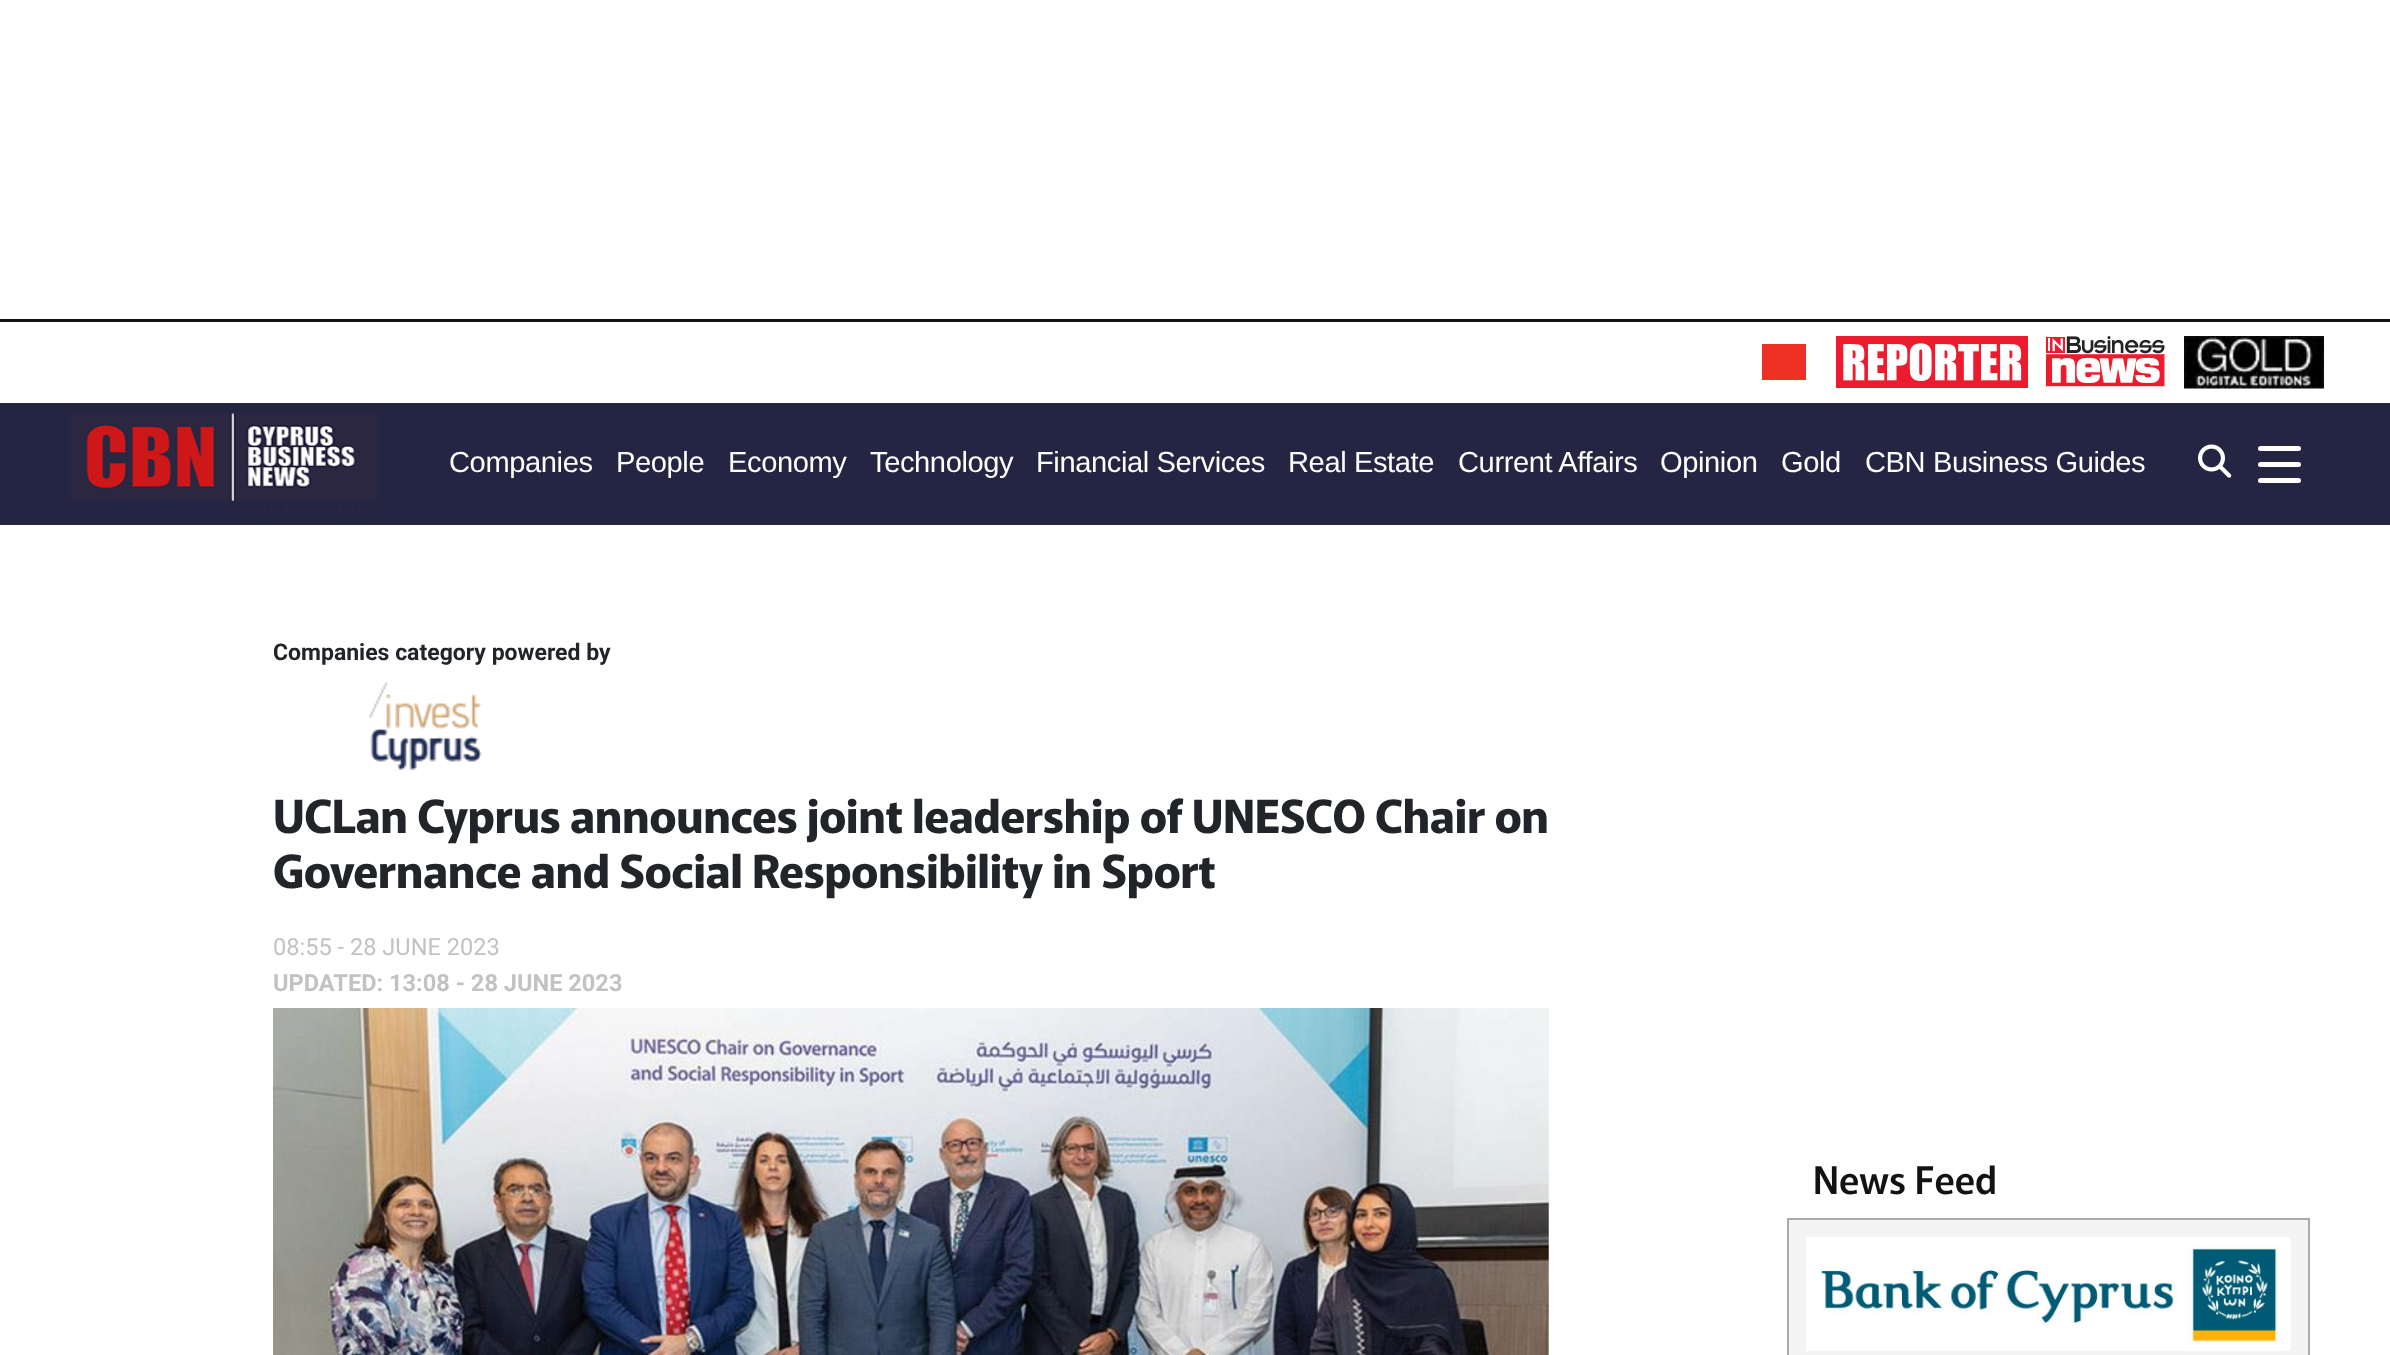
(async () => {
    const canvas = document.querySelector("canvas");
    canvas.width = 2390;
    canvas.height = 1355;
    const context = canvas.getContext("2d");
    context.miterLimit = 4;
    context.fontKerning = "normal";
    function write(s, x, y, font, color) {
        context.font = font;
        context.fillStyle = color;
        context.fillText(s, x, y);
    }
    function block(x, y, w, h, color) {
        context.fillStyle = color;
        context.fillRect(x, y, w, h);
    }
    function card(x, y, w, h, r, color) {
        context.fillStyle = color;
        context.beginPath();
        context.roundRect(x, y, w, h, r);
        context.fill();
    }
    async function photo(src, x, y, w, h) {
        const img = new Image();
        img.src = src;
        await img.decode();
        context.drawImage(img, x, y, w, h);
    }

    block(0, 0, 2390, 1355, "rgb(255, 255, 255)");
    block(0, 403, 2390, 122, "rgb(36, 37, 66)");
    block(0, 319, 2390, 3, "rgb(18, 18, 18)");
    block(1762, 344, 44, 36, "rgb(238, 49, 36)");
    await photo("media/1.png", 1836, 336, 192, 52);
    await photo("media/2.png", 2046, 336, 119, 51);
    await photo("media/3.png", 2184, 336, 140, 53);
    await photo("media/4.png", 69, 413, 310, 101);
    context.letterSpacing = "-0.4px";
    write("Companies", 449, 472, "29.1px Liberation Sans", "rgb(254, 254, 254)");
    write("People", 616, 472, "29.1px Liberation Sans", "rgb(254, 254, 254)");
    write("Economy", 728, 472, "29.1px Liberation Sans", "rgb(254, 254, 254)");
    write("Technology", 870, 472, "29.1px Liberation Sans", "rgb(254, 254, 254)");
    write("Financial Services", 1036, 472, "29.1px Liberation Sans", "rgb(254, 254, 254)");
    write("Real Estate", 1288, 472, "29.1px Liberation Sans", "rgb(254, 254, 254)");
    write("Current Affairs", 1458, 472, "29.1px Liberation Sans", "rgb(254, 254, 254)");
    write("Opinion", 1660, 472, "29.1px Liberation Sans", "rgb(254, 254, 254)");
    write("Gold", 1781, 472, "29.1px Liberation Sans", "rgb(254, 254, 254)");
    write("CBN Business Guides", 1865, 472, "29.1px Liberation Sans", "rgb(254, 254, 254)");
    await photo("media/5.png", 2198, 444, 34, 34);
    card(2258, 446, 43, 5, 2.5, "rgb(254, 254, 254)");
    card(2258, 462, 43, 5, 2.5, "rgb(254, 254, 254)");
    card(2258, 478, 43, 5, 2.5, "rgb(254, 254, 254)");
    context.letterSpacing = "0px";
    write("Companies category powered by", 273, 660, "bold 23px Roboto", "rgb(33, 37, 41)");
    await photo("media/6.png", 369, 682, 113, 88);
    context.letterSpacing = "-0.53px";
    write("UCLan Cyprus announces joint leadership of UNESCO Chair on", 273, 833, "bold 45.7px Murecho", "rgb(33, 37, 41)");
    write("Governance and Social Responsibility in Sport", 273, 888, "bold 45.7px Murecho", "rgb(33, 37, 41)");
    context.letterSpacing = "0px";
    write("08:55 - 28 JUNE 2023", 273, 955, "23.6px Roboto", "rgb(194, 194, 194)");
    write("UPDATED: 13:08 - 28 JUNE 2023", 273, 991, "bold 23.6px Roboto", "rgb(194, 194, 194)");
    await photo("media/7.png", 273, 1008, 1276, 347);
    write("News Feed", 1813, 1194, "500 38px Murecho", "rgb(18, 18, 18)");
    context.fillStyle = "rgb(244, 244, 244)";
    context.beginPath();
    context.rect(1788, 1219, 521, 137);
    context.fill();
    context.strokeStyle = "rgb(171, 171, 171)";
    context.lineWidth = 2;
    context.stroke();
    await photo("media/8.png", 1806, 1237, 485, 114);
})();
